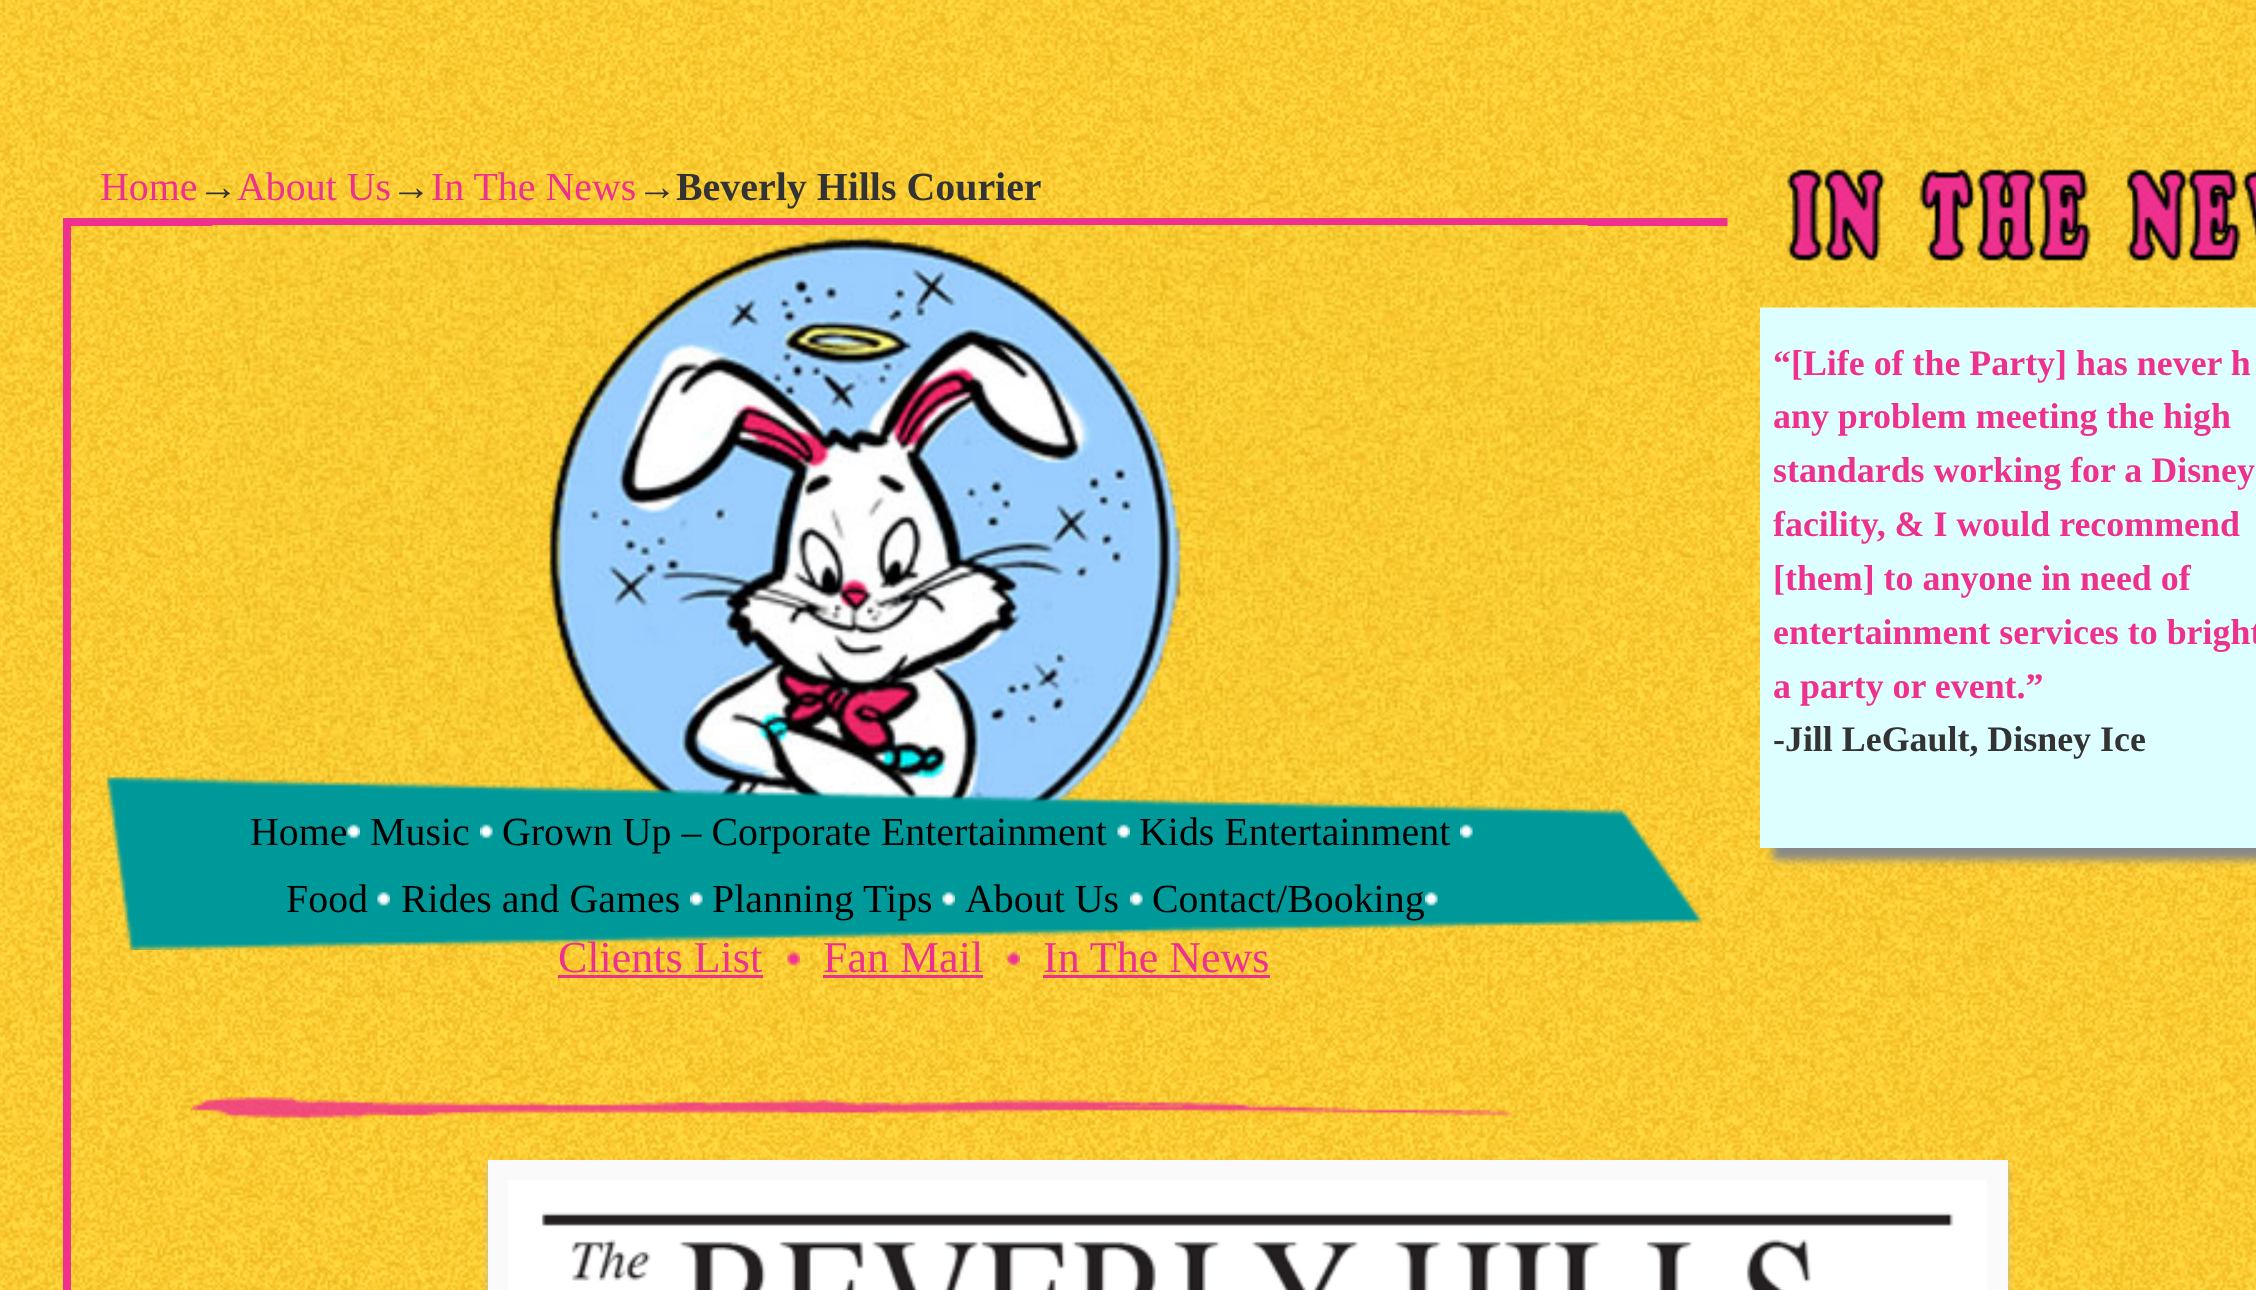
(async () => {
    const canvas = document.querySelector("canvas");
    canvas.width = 2256;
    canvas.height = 1290;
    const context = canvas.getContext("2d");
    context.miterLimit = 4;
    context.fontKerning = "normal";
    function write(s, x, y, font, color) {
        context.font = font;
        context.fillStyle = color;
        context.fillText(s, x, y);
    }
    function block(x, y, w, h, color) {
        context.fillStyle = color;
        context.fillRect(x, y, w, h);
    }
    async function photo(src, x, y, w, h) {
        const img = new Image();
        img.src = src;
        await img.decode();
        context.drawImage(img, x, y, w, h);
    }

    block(0, 0, 2256, 1290, "rgb(255, 255, 255)");
    await photo("media/1.png", 0, 0, 2256, 1290);
    write("Home", 100, 200, "39.9px Liberation Serif", "rgb(238, 49, 142)");
    write("→", 198, 200, "39.9px Liberation Serif", "rgb(51, 51, 51)");
    write("About Us", 237, 200, "39.9px Liberation Serif", "rgb(238, 49, 142)");
    write("→", 391, 200, "39.9px Liberation Serif", "rgb(51, 51, 51)");
    write("In The News", 431, 200, "39.9px Liberation Serif", "rgb(238, 49, 142)");
    write("→", 637, 200, "39.9px Liberation Serif", "rgb(51, 51, 51)");
    write("Beverly Hills Courier", 676, 200, "bold 39.9px Liberation Serif", "rgb(51, 51, 51)");
    context.strokeStyle = "rgb(240, 48, 143)";
    context.lineWidth = 8;
    context.strokeRect(67, 222, 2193, 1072);
    context.fillStyle = "rgb(136, 136, 136)";
    context.filter = "blur(4px)";
    context.beginPath();
    context.rect(1773, 313, 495, 547);
    context.fill();
    context.filter = "none";
    block(1760, 307, 496, 541, "rgb(222, 255, 255)");
    await photo("media/2.png", 1727, 127, 529, 181);
    write("“[Life of the Party] has never h", 1773, 375, "bold 35.9px Liberation Serif", "rgb(238, 49, 142)");
    write("any problem meeting the high", 1773, 428, "bold 35.9px Liberation Serif", "rgb(238, 49, 142)");
    write("standards working for a Disney", 1773, 482, "bold 35.9px Liberation Serif", "rgb(238, 49, 142)");
    write("facility, & I would recommend", 1773, 536, "bold 35.9px Liberation Serif", "rgb(238, 49, 142)");
    write("[them] to anyone in need of", 1773, 590, "bold 35.9px Liberation Serif", "rgb(238, 49, 142)");
    write("entertainment services to bright", 1773, 644, "bold 35.9px Liberation Serif", "rgb(238, 49, 142)");
    write("a party or event.”", 1773, 698, "bold 35.9px Liberation Serif", "rgb(238, 49, 142)");
    write("-Jill LeGault, Disney Ice", 1773, 751, "bold 35.9px Liberation Serif", "rgb(51, 51, 51)");
    await photo("media/3.png", 212, 225, 1376, 591);
    await photo("media/4.png", 106, 776, 1597, 174);
    write("Home", 250, 845, "39.9px Liberation Serif", "rgb(0, 0, 0)");
    await photo("media/5.png", 347, 824, 13, 15);
    write("Music", 370, 845, "39.9px Liberation Serif", "rgb(0, 0, 0)");
    await photo("media/6.png", 480, 824, 13, 15);
    write("Grown Up – Corporate Entertainment", 502, 845, "39.9px Liberation Serif", "rgb(0, 0, 0)");
    await photo("media/5.png", 1117, 824, 13, 15);
    write("Kids Entertainment", 1139, 845, "39.9px Liberation Serif", "rgb(0, 0, 0)");
    await photo("media/7.png", 1460, 824, 13, 15);
    write("Food", 286, 912, "39.9px Liberation Serif", "rgb(0, 0, 0)");
    await photo("media/8.png", 377, 891, 13, 15);
    write("Rides and Games", 401, 912, "39.9px Liberation Serif", "rgb(0, 0, 0)");
    await photo("media/9.png", 690, 891, 13, 15);
    write("Planning Tips", 712, 912, "39.9px Liberation Serif", "rgb(0, 0, 0)");
    await photo("media/8.png", 942, 891, 13, 15);
    write("About Us", 965, 912, "39.9px Liberation Serif", "rgb(0, 0, 0)");
    await photo("media/9.png", 1130, 891, 13, 15);
    write("Contact/Booking", 1152, 912, "39.9px Liberation Serif", "rgb(0, 0, 0)");
    await photo("media/10.png", 1425, 891, 13, 15);
    write("Clients List", 558, 972, "44px Liberation Serif", "rgb(238, 49, 142)");
    block(558, 975, 205, 3, "rgb(238, 49, 142)");
    await photo("media/11.png", 787, 951, 13, 15);
    write("Fan Mail", 823, 972, "44px Liberation Serif", "rgb(238, 49, 142)");
    block(823, 975, 160, 3, "rgb(238, 49, 142)");
    await photo("media/12.png", 1007, 951, 13, 15);
    write("In The News", 1043, 972, "44px Liberation Serif", "rgb(238, 49, 142)");
    block(1043, 975, 227, 3, "rgb(238, 49, 142)");
    await photo("media/13.png", 189, 1096, 1324, 23);
    context.fillStyle = "rgb(187, 187, 187)";
    context.filter = "blur(2.5px)";
    context.beginPath();
    context.rect(488, 1163, 1520, 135);
    context.fill();
    context.filter = "none";
    block(488, 1160, 1520, 130, "rgb(250, 250, 250)");
    await photo("media/14.png", 508, 1180, 1479, 110);
})();
